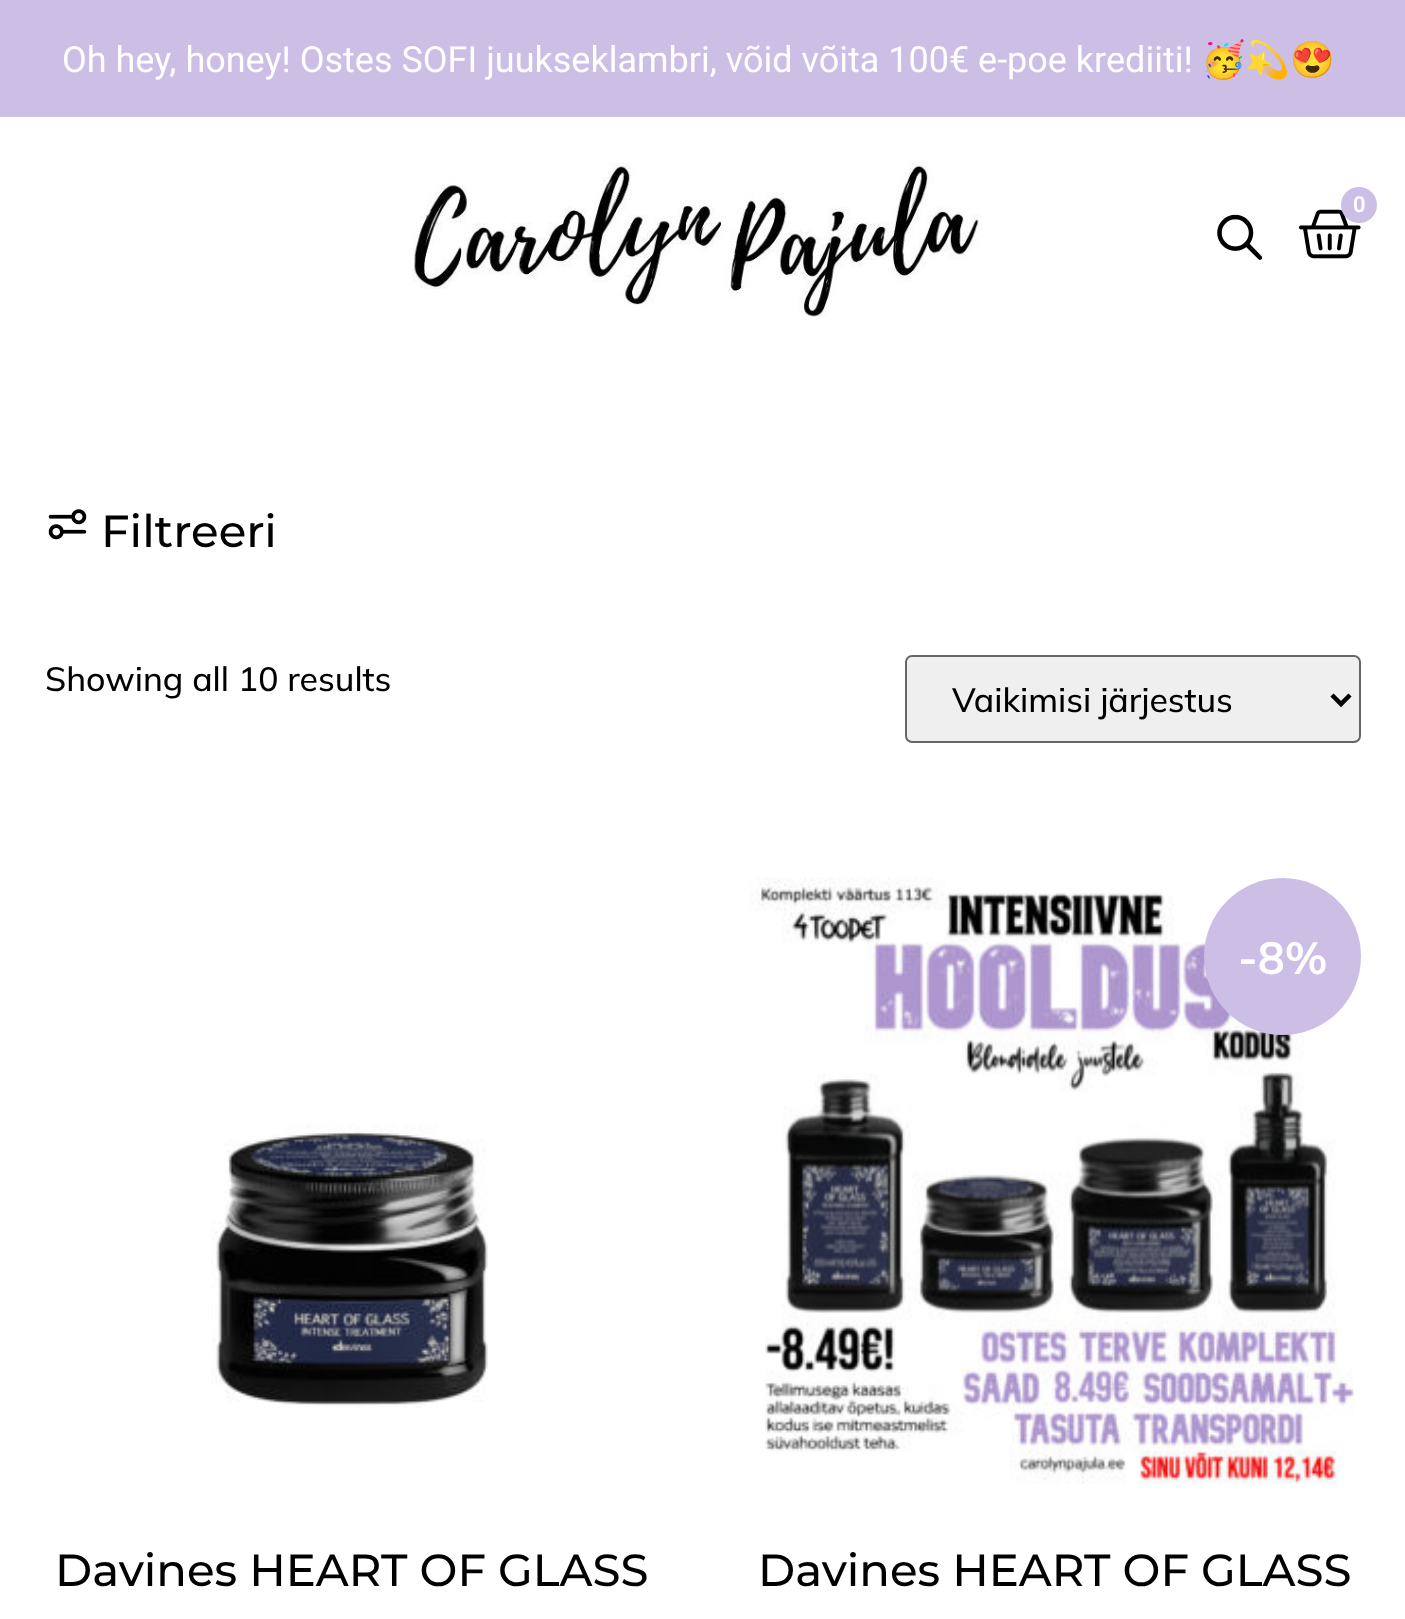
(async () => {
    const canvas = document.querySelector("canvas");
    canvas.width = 1405;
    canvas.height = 1619;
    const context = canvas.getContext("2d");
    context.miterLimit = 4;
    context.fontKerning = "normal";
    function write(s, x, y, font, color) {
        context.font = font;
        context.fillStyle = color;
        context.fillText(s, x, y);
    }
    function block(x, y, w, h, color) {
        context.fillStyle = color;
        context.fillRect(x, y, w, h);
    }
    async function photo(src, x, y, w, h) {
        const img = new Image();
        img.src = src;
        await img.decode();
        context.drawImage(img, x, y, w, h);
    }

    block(0, 0, 1405, 1619, "rgb(255, 255, 255)");
    block(0, 0, 1405, 117, "rgb(204, 190, 229)");
    write("Oh hey, honey! Ostes SOFI juukseklambri, võid võita 100€ e-poe krediiti!", 62, 72, "36px Roboto", "rgb(255, 255, 255)");
    write("🥳💫😍", 1201, 72, "36px Noto Color Emoji", "rgb(255, 255, 255)");
    await photo("media/1.png", 412, 162, 569, 155);
    await photo("media/2.png", 1298, 209, 63, 50);
    context.fillStyle = "rgb(204, 190, 229)";
    context.beginPath();
    context.arc(1359, 205, 18, 0, Math.PI * 2);
    context.fill();
    write("0", 1353, 212, "600 22px Roboto", "rgb(255, 255, 255)");
    await photo("media/3.png", 1217, 214, 45, 46);
    await photo("media/4.png", 48, 509, 39, 31);
    write("Filtreeri", 101, 547, "500 45px Montserrat", "rgb(0, 0, 0)");
    write("Showing all 10 results", 45, 691, "500 33.75px Mulish", "rgb(0, 0, 0)");
    context.fillStyle = "rgb(239, 239, 239)";
    context.beginPath();
    context.roundRect(906, 656, 454, 86, 6);
    context.fill();
    context.strokeStyle = "rgb(102, 102, 102)";
    context.lineWidth = 2;
    context.stroke();
    context.beginPath();
    context.moveTo(1332, 695);
    context.lineTo(1341, 704);
    context.lineTo(1350, 695);
    context.strokeStyle = "rgb(0, 0, 0)";
    context.lineWidth = 4.5;
    context.stroke();
    write("Vaikimisi järjestus", 952, 712, "500 33.75px Mulish", "rgb(0, 0, 0)");
    await photo("media/5.png", 211, 1123, 277, 285);
    write("Davines HEART OF GLASS", 55, 1586, "500 45px Montserrat", "rgb(0, 0, 0)");
    await photo("media/6.png", 749, 877, 605, 607);
    context.fillStyle = "rgb(204, 190, 229)";
    context.beginPath();
    context.arc(1282.5, 956.5, 78.5, 0, Math.PI * 2);
    context.fill();
    write("-8%", 1238, 974, "bold 45px Mulish", "rgb(255, 255, 255)");
    write("Davines HEART OF GLASS", 758, 1586, "500 45px Montserrat", "rgb(0, 0, 0)");
})();
